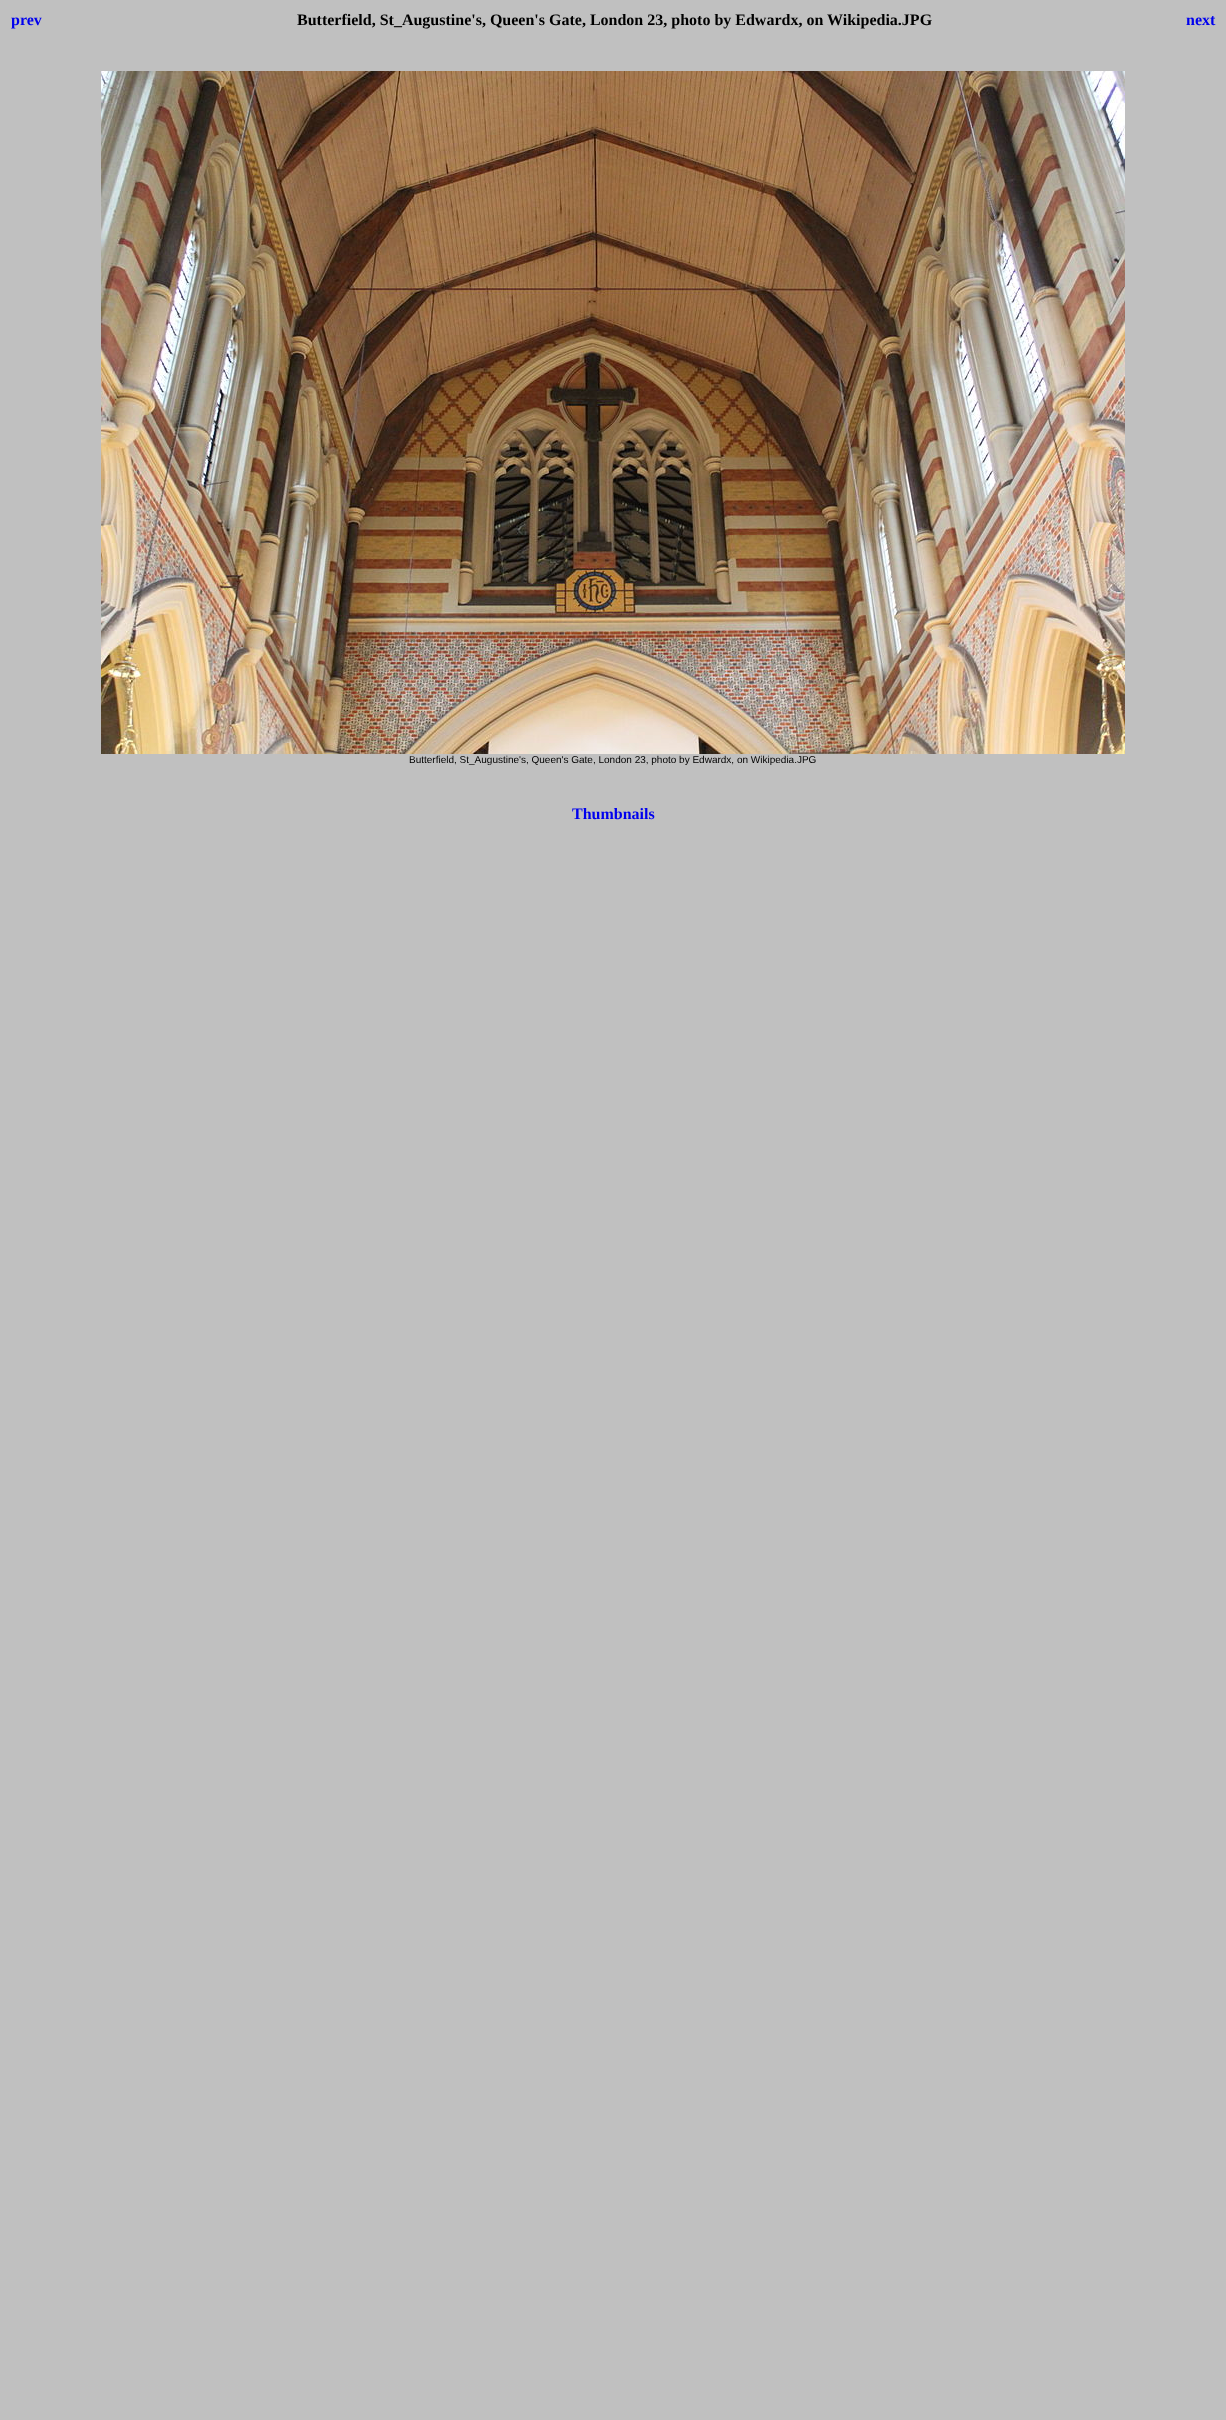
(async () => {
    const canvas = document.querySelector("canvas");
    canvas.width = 1226;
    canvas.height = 2420;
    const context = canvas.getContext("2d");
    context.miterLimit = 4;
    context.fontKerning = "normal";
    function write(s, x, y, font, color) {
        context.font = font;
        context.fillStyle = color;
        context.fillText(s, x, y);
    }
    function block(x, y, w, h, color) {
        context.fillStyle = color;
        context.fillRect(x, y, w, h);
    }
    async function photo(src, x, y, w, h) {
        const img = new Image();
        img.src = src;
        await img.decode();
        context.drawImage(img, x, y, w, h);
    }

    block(0, 0, 1226, 2420, "rgb(192, 192, 192)");
    write("prev", 11, 25, "bold 16px Liberation Serif", "rgb(0, 0, 238)");
    write("Butterfield, St_Augustine's, Queen's Gate, London 23, photo by Edwardx, on Wikipedia.JPG", 297, 25, "bold 16px Liberation Serif", "rgb(0, 0, 0)");
    write("next", 1186, 25, "bold 16px Liberation Serif", "rgb(0, 0, 238)");
    await photo("media/1.png", 101, 71, 1024, 683);
    write("Butterfield, St_Augustine's, Queen's Gate, London 23, photo by Edwardx, on Wikipedia.JPG", 409, 763, "10px Liberation Sans", "rgb(0, 0, 0)");
    write("Thumbnails", 572, 819, "bold 16px Liberation Serif", "rgb(0, 0, 238)");
})();
